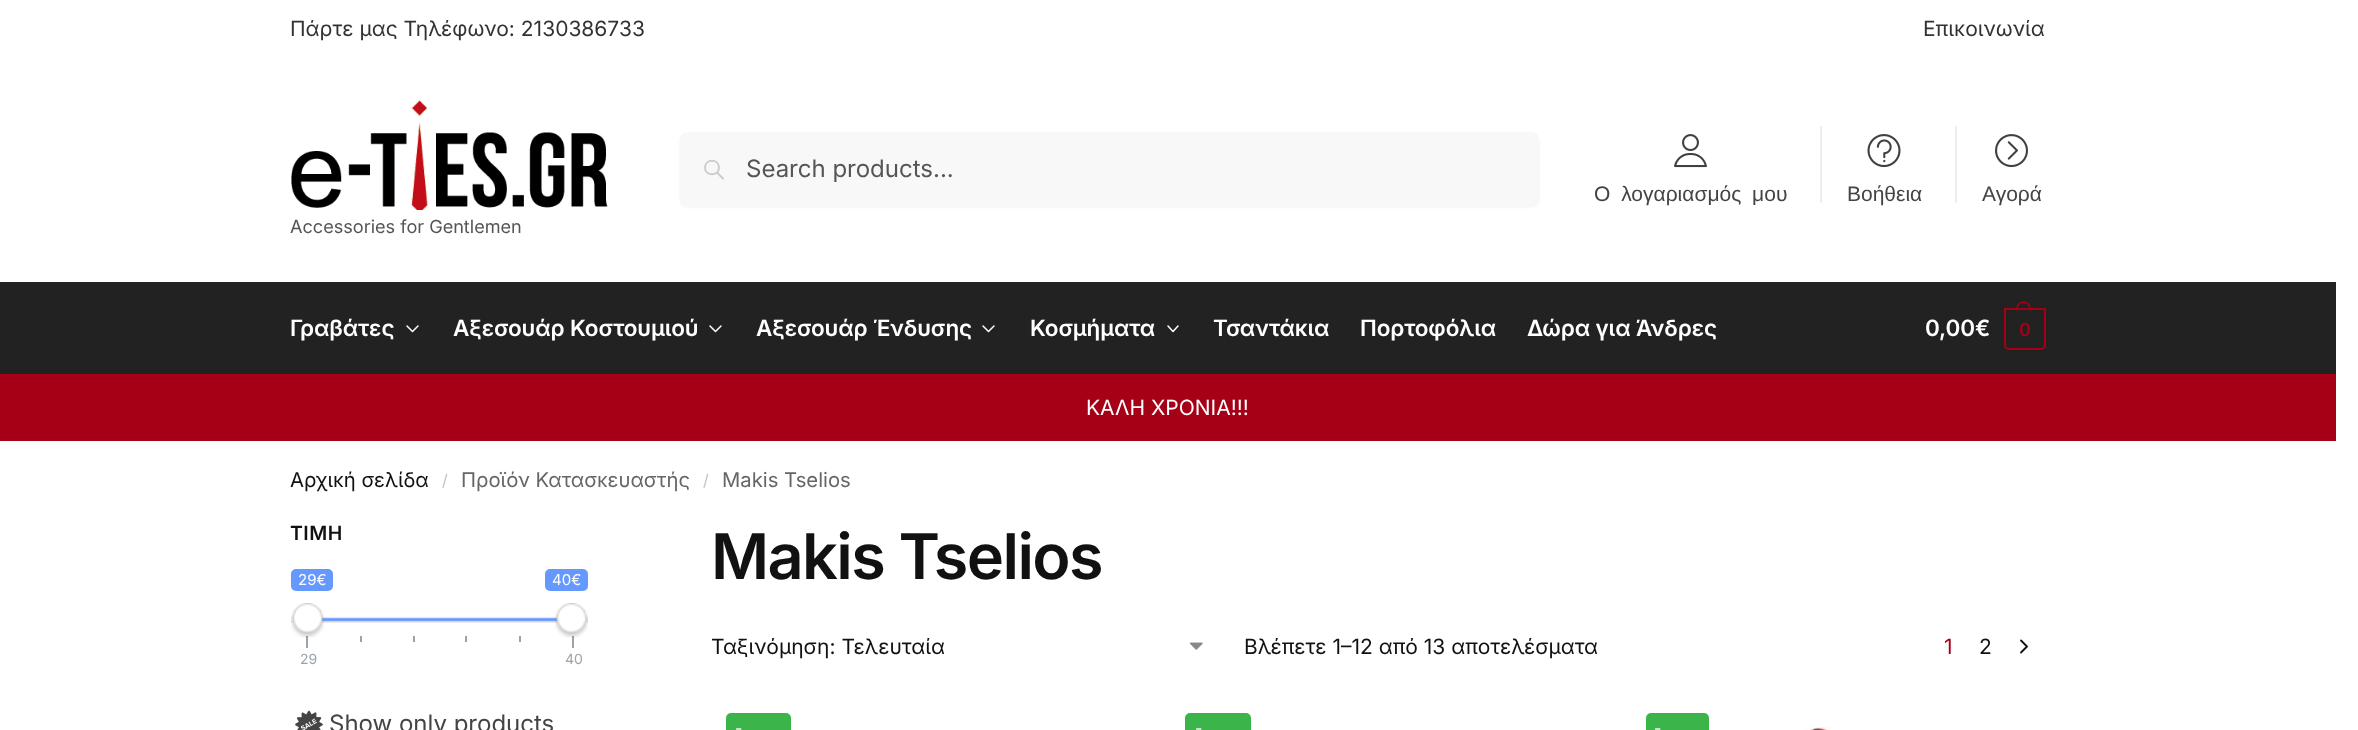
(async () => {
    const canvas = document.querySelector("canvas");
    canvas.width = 2358;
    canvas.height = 730;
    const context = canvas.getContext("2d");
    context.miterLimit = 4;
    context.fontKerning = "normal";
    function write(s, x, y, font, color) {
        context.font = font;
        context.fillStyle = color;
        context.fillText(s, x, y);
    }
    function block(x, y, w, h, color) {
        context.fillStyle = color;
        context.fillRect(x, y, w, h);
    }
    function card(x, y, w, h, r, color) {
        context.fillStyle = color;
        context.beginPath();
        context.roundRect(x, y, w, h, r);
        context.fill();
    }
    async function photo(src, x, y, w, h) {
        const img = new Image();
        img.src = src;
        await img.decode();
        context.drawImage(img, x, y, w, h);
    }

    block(0, 0, 2358, 730, "rgb(255, 255, 255)");
    write("Πάρτε μας Τηλέφωνο: 2130386733", 290, 36, "21px Inter", "rgb(50, 50, 50)");
    write("Επικοινωνία", 1923, 36, "21px Inter", "rgb(50, 50, 50)");
    context.fillStyle = "rgba(0, 0, 0, 0.05)";
    context.filter = "blur(1.5px)";
    context.beginPath();
    context.roundRect(680, 134, 859, 73, 8);
    context.fill();
    context.filter = "none";
    card(680, 132, 859, 74, 8, "rgb(248, 248, 248)");
    context.beginPath();
    context.moveTo(723, 178.5);
    context.lineTo(717, 172.5);
    context.moveTo(719, 167.5);
    context.bezierCurveTo(719, 176.5, 705, 176.5, 705, 167.5);
    context.bezierCurveTo(705, 158.5, 719, 158.5, 719, 167.5);
    context.closePath();
    context.strokeStyle = "rgb(204, 204, 204)";
    context.lineWidth = 2;
    context.lineCap = "round";
    context.lineJoin = "round";
    context.stroke();
    write("Search products...", 746, 177, "24px Inter", "rgb(85, 85, 85)");
    await photo("media/1.png", 1674, 134, 33, 34);
    context.wordSpacing = "5px";
    write("Ο λογαριασμός μου", 1594, 201, "21px Liberation Sans", "rgb(68, 68, 68)");
    block(1820, 126, 2, 77, "rgb(238, 238, 238)");
    await photo("media/2.png", 1867, 134, 34, 34);
    context.wordSpacing = "0px";
    write("Βοήθεια", 1847, 201, "21px Liberation Sans", "rgb(68, 68, 68)");
    block(1955, 126, 2, 77, "rgb(238, 238, 238)");
    await photo("media/3.png", 1995, 134, 33, 34);
    write("Αγορά", 1982, 201, "21px Liberation Sans", "rgb(68, 68, 68)");
    await photo("media/4.png", 291, 100, 317, 110);
    write("Accessories for Gentlemen", 290, 233, "18.1px Inter", "rgb(85, 85, 85)");
    block(0, 282, 2336, 92, "rgb(34, 34, 34)");
    context.letterSpacing = "-0.1px";
    write("Γραβάτες", 290, 336, "600 22.5px Inter", "rgb(255, 255, 255)");
    context.beginPath();
    context.moveTo(418, 326);
    context.lineTo(412.5, 331.5);
    context.lineTo(407, 326);
    context.strokeStyle = "rgb(255, 255, 255)";
    context.lineWidth = 1.5;
    context.stroke();
    write("Αξεσουάρ Κοστουμιού", 453, 336, "600 22.5px Inter", "rgb(255, 255, 255)");
    context.beginPath();
    context.moveTo(721, 326);
    context.lineTo(715.5, 331.5);
    context.lineTo(710, 326);
    context.stroke();
    write("Αξεσουάρ Ένδυσης", 756, 336, "600 22.5px Inter", "rgb(255, 255, 255)");
    context.beginPath();
    context.moveTo(994, 326);
    context.lineTo(988.5, 331.5);
    context.lineTo(983, 326);
    context.stroke();
    write("Κοσμήματα", 1030, 336, "600 22.5px Inter", "rgb(255, 255, 255)");
    context.beginPath();
    context.moveTo(1178, 326);
    context.lineTo(1173, 331.5);
    context.lineTo(1168, 326);
    context.stroke();
    write("Τσαντάκια", 1213, 336, "600 22.5px Inter", "rgb(255, 255, 255)");
    write("Πορτοφόλια", 1360, 336, "600 22.5px Inter", "rgb(255, 255, 255)");
    write("Δώρα για Άνδρες", 1527, 336, "600 22.5px Inter", "rgb(255, 255, 255)");
    write("0,00€", 1925, 336, "600 22.5px Inter", "rgb(255, 255, 255)");
    context.beginPath();
    context.roundRect(2005, 309, 40, 40, [0, 0, 4, 4]);
    context.strokeStyle = "rgb(166, 0, 22)";
    context.lineWidth = 2;
    context.lineJoin = "miter";
    context.stroke();
    context.fillStyle = "rgb(166, 0, 22)";
    context.beginPath();
    context.moveTo(2023.5, 301.5);
    context.bezierCurveTo(2029, 301.5, 2031, 306, 2031, 310.5);
    context.lineTo(2016, 310.5);
    context.bezierCurveTo(2016, 306, 2018, 301.5, 2023.5, 301.5);
    context.closePath();
    context.moveTo(2023.5, 303);
    context.bezierCurveTo(2028, 303, 2029.5, 306.5, 2029.5, 310.5);
    context.lineTo(2017.5, 310.5);
    context.bezierCurveTo(2017.5, 306.5, 2019, 303, 2023.5, 303);
    context.closePath();
    context.fill("evenodd");
    context.letterSpacing = "-1px";
    write("0", 2019, 336, "600 18px Inter", "rgb(166, 0, 22)");
    block(0, 374, 2336, 67, "rgb(166, 0, 22)");
    context.letterSpacing = "0px";
    write("ΚΑΛΗ ΧΡΟΝΙΑ!!!", 1086, 415, "21px Inter", "rgb(255, 255, 255)");
    write("Αρχική σελίδα", 290, 487, "20.25px Inter", "rgb(17, 17, 17)");
    write("/", 442, 486, "16px Inter", "rgb(194, 194, 194)");
    write("Προϊόν Κατασκευαστής", 461, 487, "20.25px Inter", "rgb(102, 102, 102)");
    write("/", 703, 486, "16px Inter", "rgb(194, 194, 194)");
    write("Makis Tselios", 722, 487, "20.25px Inter", "rgb(102, 102, 102)");
    context.letterSpacing = "0.5px";
    write("ΤΙΜΗ", 290, 540, "600 19.5px Inter", "rgb(17, 17, 17)");
    card(291, 569, 42, 22, 5, "rgb(102, 153, 255)");
    context.letterSpacing = "0px";
    write("29€", 298, 585, "15px Inter", "rgb(255, 255, 255)");
    card(545, 569, 43, 22, 5, "rgb(102, 153, 255)");
    write("40€", 552, 585, "15px Inter", "rgb(255, 255, 255)");
    await photo("media/5.png", 291, 616, 32, 7);
    await photo("media/6.png", 320, 616, 239, 7);
    await photo("media/7.png", 557, 616, 31, 7);
    await photo("media/9.png", 320, 617, 239, 6);
    block(306, 636, 2, 12, "rgb(153, 164, 172)");
    await photo("media/8.png", 291, 603, 33, 35);
    block(572, 636, 2, 12, "rgb(153, 164, 172)");
    await photo("media/10.png", 555, 603, 33, 35);
    block(360, 636, 2, 6, "rgb(153, 164, 172)");
    block(413, 636, 2, 6, "rgb(153, 164, 172)");
    block(465, 636, 2, 6, "rgb(153, 164, 172)");
    block(519, 636, 2, 6, "rgb(153, 164, 172)");
    write("29", 300, 664, "14px Inter", "rgb(153, 164, 172)");
    write("40", 565, 664, "14px Inter", "rgb(153, 164, 172)");
    await photo("media/11.png", 295, 710, 28, 20);
    write("Show only products", 329, 732, "24px Inter", "rgb(68, 68, 68)");
    context.letterSpacing = "-1.6px";
    write("Makis Tselios", 711, 579, "600 63px Inter", "rgb(17, 17, 17)");
    await photo("media/12.png", 1189, 642, 14, 8);
    context.letterSpacing = "0px";
    write("Ταξινόμηση: Τελευταία", 711, 654, "21px Inter", "rgb(17, 17, 17)");
    write("Βλέπετε 1–12 από 13 αποτελέσματα", 1244, 654, "21px Inter", "rgb(17, 17, 17)");
    write("1", 1944, 654, "21px Inter", "rgb(166, 0, 22)");
    write("2", 1979, 654, "21px Inter", "rgb(17, 17, 17)");
    context.beginPath();
    context.moveTo(2021, 640.5);
    context.lineTo(2027, 646.5);
    context.lineTo(2021, 652.5);
    context.strokeStyle = "rgb(17, 17, 17)";
    context.lineWidth = 1.8;
    context.lineJoin = "round";
    context.stroke();
    card(726, 713, 65, 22, 5, "rgb(59, 181, 74)");
    context.letterSpacing = "1px";
    write("-", 735, 734, "16px Inter", "rgb(255, 255, 255)");
    card(1185, 713, 66, 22, 5, "rgb(59, 181, 74)");
    write("-", 1195, 734, "16px Inter", "rgb(255, 255, 255)");
    card(1646, 713, 63, 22, 5, "rgb(59, 181, 74)");
    write("-", 1654, 734, "16px Inter", "rgb(255, 255, 255)");
    await photo("media/13.png", 1805, 727, 26, 3);
})();
